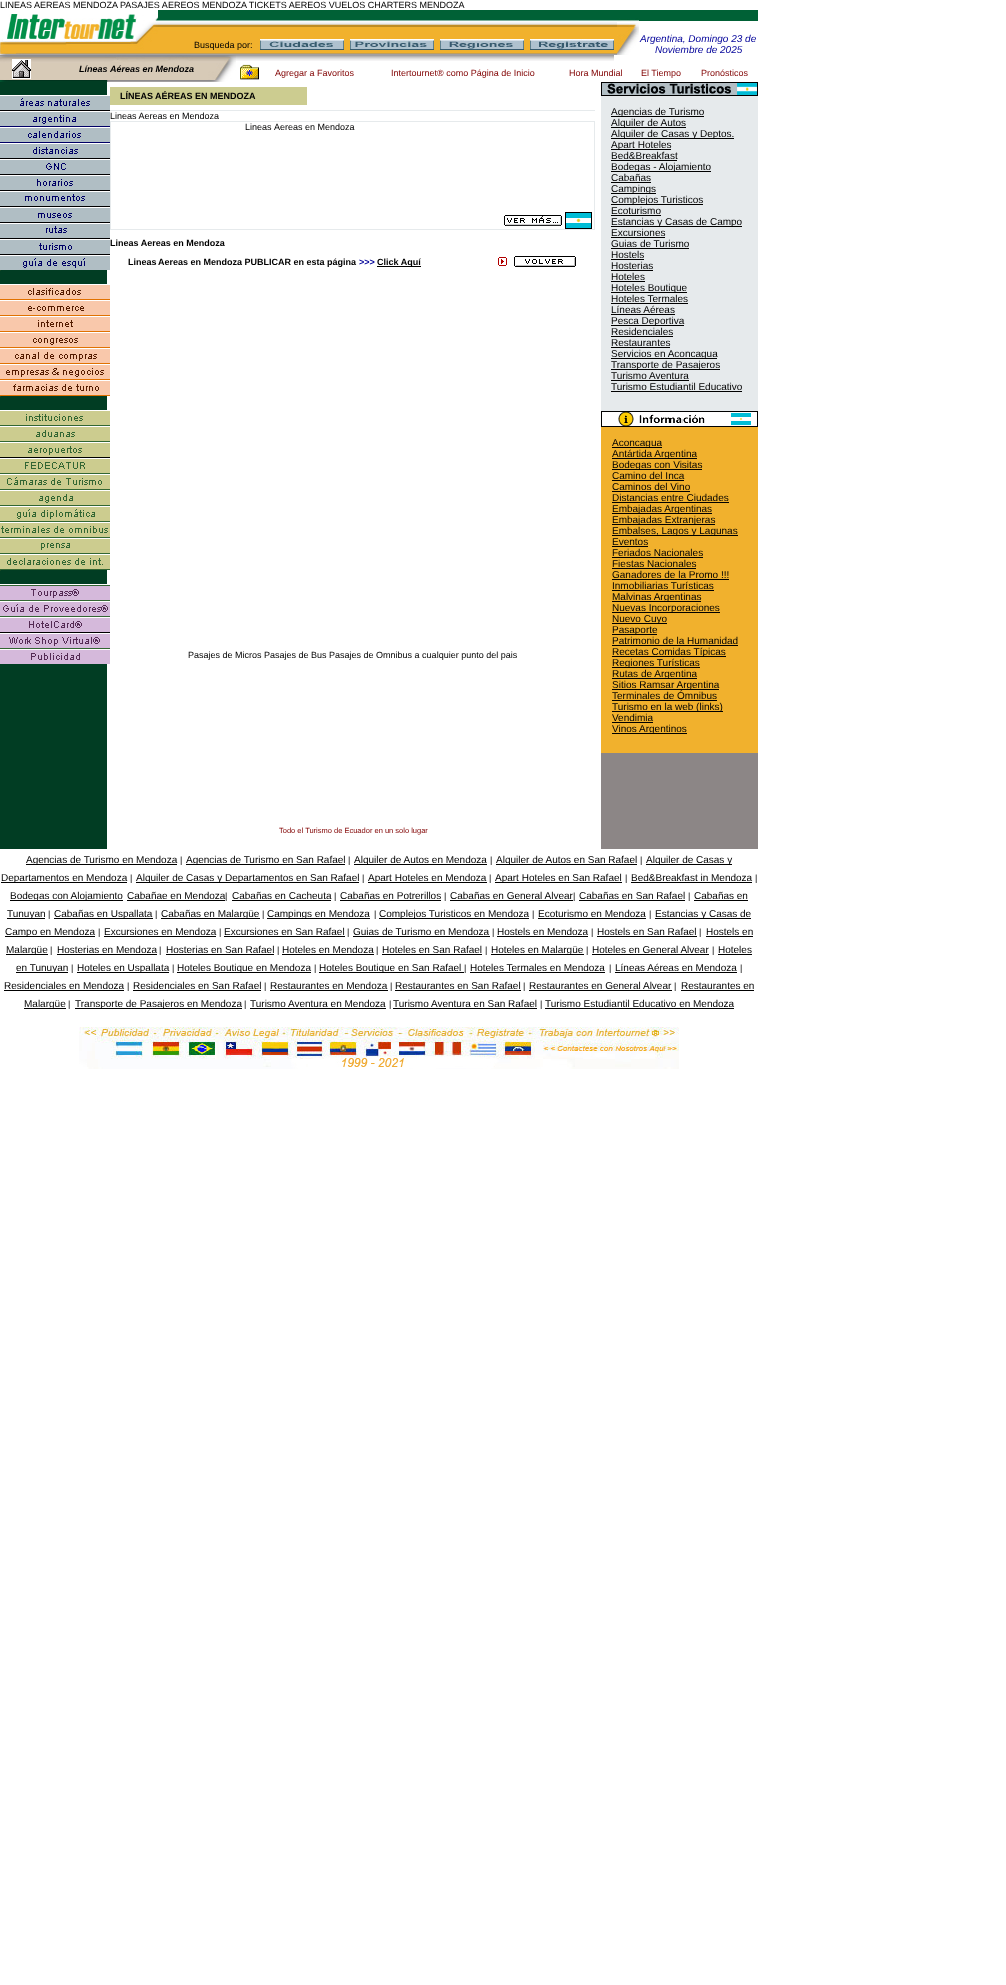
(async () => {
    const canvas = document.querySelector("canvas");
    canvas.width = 1006;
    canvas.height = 1985;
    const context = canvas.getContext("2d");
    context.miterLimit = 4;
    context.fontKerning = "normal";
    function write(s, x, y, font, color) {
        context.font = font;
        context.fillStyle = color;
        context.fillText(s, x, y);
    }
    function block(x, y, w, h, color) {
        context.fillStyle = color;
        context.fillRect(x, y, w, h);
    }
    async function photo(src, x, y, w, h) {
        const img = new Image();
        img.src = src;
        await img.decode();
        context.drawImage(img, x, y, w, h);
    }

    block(0, 0, 1006, 1985, "rgb(255, 255, 255)");
    write("LINEAS", 0, 8, "9px Liberation Sans", "rgb(0, 0, 0)");
    write("AEREAS MENDOZA PASAJES AEREOS MENDOZA TICKETS AEREOS VUELOS CHARTERS MENDOZA", 34, 8, "9px Liberation Sans", "rgb(0, 0, 0)");
    await photo("media/1.png", 0, 14, 158, 41);
    await photo("media/2.png", 158, 10, 459, 45);
    write("Busqueda por:", 194, 48, "9px Liberation Sans", "rgb(0, 0, 0)");
    await photo("media/3.png", 260, 39, 84, 11);
    await photo("media/4.png", 350, 39, 84, 11);
    await photo("media/5.png", 440, 39, 84, 11);
    await photo("media/6.png", 530, 39, 84, 11);
    await photo("media/7.png", 617, 10, 22, 45);
    block(639, 10, 119, 11, "rgb(0, 97, 54)");
    write("Argentina, Domingo 23 de", 640, 42, "italic 10px Liberation Sans", "rgb(0, 0, 153)");
    write("Noviembre de 2025", 655, 53, "italic 10px Liberation Sans", "rgb(0, 0, 153)");
    await photo("media/8.png", 0, 55, 236, 27);
    await photo("media/9.png", 12, 59, 19, 20);
    write("Líneas", 79, 72, "italic bold 9px Liberation Sans", "rgb(0, 0, 0)");
    write("Aéreas en Mendoza", 110, 72, "italic bold 9px Liberation Sans", "rgb(0, 0, 0)");
    await photo("media/10.png", 236, 55, 286, 6);
    await photo("media/11.png", 522, 55, 92, 6);
    await photo("media/12.png", 240, 64, 19, 16);
    write("Agregar a Favoritos", 275, 76, "9px Liberation Sans", "rgb(128, 0, 0)");
    write("Intertournet® como Página de Inicio", 391, 76, "9px Liberation Sans", "rgb(128, 0, 0)");
    write("Hora Mundial", 569, 76, "9px Liberation Sans", "rgb(128, 0, 0)");
    write("El Tiempo", 641, 76, "9px Liberation Sans", "rgb(128, 0, 0)");
    write("Pronósticos", 701, 76, "9px Liberation Sans", "rgb(128, 0, 0)");
    block(0, 82, 107, 767, "rgb(1, 61, 35)");
    block(0, 95, 110, 1, "rgb(255, 255, 255)");
    block(0, 96, 110, 14, "rgb(176, 190, 196)");
    await photo("media/13.png", 20, 98, 71, 8);
    block(0, 110, 110, 1, "rgb(0, 0, 0)");
    block(0, 111, 110, 1, "rgb(255, 255, 255)");
    block(0, 112, 110, 14, "rgb(176, 190, 196)");
    await photo("media/14.png", 33, 115, 43, 9);
    block(0, 126, 110, 1, "rgb(0, 0, 102)");
    block(0, 127, 110, 1, "rgb(255, 255, 255)");
    block(0, 128, 110, 14, "rgb(176, 190, 196)");
    await photo("media/15.png", 27, 129, 58, 9);
    block(0, 142, 110, 1, "rgb(0, 0, 102)");
    block(0, 143, 110, 1, "rgb(255, 255, 255)");
    block(0, 144, 110, 14, "rgb(176, 190, 196)");
    await photo("media/16.png", 33, 147, 45, 7);
    block(0, 158, 110, 1, "rgb(0, 0, 0)");
    block(0, 159, 110, 1, "rgb(255, 255, 255)");
    block(0, 160, 110, 14, "rgb(176, 190, 196)");
    await photo("media/17.png", 46, 162, 20, 8);
    block(0, 174, 110, 1, "rgb(0, 0, 0)");
    block(0, 175, 110, 1, "rgb(255, 255, 255)");
    block(0, 176, 110, 14, "rgb(176, 190, 196)");
    await photo("media/18.png", 37, 177, 40, 9);
    block(0, 190, 110, 1, "rgb(0, 0, 0)");
    block(0, 191, 110, 1, "rgb(255, 255, 255)");
    block(0, 192, 110, 14, "rgb(176, 190, 196)");
    await photo("media/19.png", 25, 192, 60, 9);
    block(0, 206, 110, 1, "rgb(0, 0, 0)");
    block(0, 207, 110, 1, "rgb(255, 255, 255)");
    block(0, 208, 110, 14, "rgb(176, 190, 196)");
    await photo("media/20.png", 38, 210, 34, 8);
    block(0, 222, 110, 1, "rgb(0, 0, 0)");
    block(0, 223, 110, 1, "rgb(255, 255, 255)");
    block(0, 224, 110, 14, "rgb(176, 190, 196)");
    await photo("media/21.png", 46, 226, 21, 7);
    block(0, 238, 110, 1, "rgb(0, 0, 0)");
    block(0, 239, 110, 1, "rgb(255, 255, 255)");
    block(0, 240, 110, 14, "rgb(176, 190, 196)");
    await photo("media/22.png", 35, 241, 37, 9);
    block(0, 254, 110, 1, "rgb(0, 0, 0)");
    block(0, 255, 110, 1, "rgb(255, 255, 255)");
    block(0, 256, 110, 14, "rgb(176, 190, 196)");
    await photo("media/23.png", 19, 258, 66, 12);
    block(0, 270, 1, 1, "rgb(26, 73, 37)");
    block(0, 284, 110, 1, "rgb(255, 255, 255)");
    block(0, 285, 110, 14, "rgb(249, 200, 171)");
    await photo("media/24.png", 28, 288, 53, 7);
    block(0, 299, 110, 1, "rgb(225, 113, 0)");
    block(0, 300, 110, 1, "rgb(255, 255, 255)");
    block(0, 301, 110, 14, "rgb(249, 200, 171)");
    await photo("media/25.png", 28, 306, 56, 5);
    block(0, 315, 110, 1, "rgb(225, 113, 0)");
    block(0, 316, 110, 1, "rgb(255, 255, 255)");
    block(0, 317, 110, 14, "rgb(249, 200, 171)");
    await photo("media/26.png", 38, 320, 35, 7);
    block(0, 331, 110, 1, "rgb(225, 113, 0)");
    block(0, 332, 110, 1, "rgb(255, 255, 255)");
    block(0, 333, 110, 14, "rgb(249, 200, 171)");
    await photo("media/27.png", 33, 338, 45, 7);
    block(0, 347, 110, 1, "rgb(225, 113, 0)");
    block(0, 348, 110, 1, "rgb(255, 255, 255)");
    block(0, 349, 110, 14, "rgb(249, 200, 171)");
    await photo("media/28.png", 15, 352, 82, 9);
    block(0, 363, 110, 1, "rgb(225, 113, 0)");
    block(0, 364, 110, 1, "rgb(255, 255, 255)");
    block(0, 365, 110, 14, "rgb(249, 200, 171)");
    await photo("media/29.png", 6, 368, 98, 9);
    block(0, 379, 110, 1, "rgb(225, 113, 0)");
    block(0, 380, 110, 1, "rgb(255, 255, 255)");
    block(0, 381, 110, 14, "rgb(249, 200, 171)");
    await photo("media/30.png", 13, 384, 86, 7);
    block(0, 395, 110, 1, "rgb(225, 113, 0)");
    block(0, 396, 1, 1, "rgb(26, 73, 37)");
    block(0, 410, 110, 1, "rgb(255, 255, 255)");
    block(0, 411, 110, 14, "rgb(204, 204, 143)");
    await photo("media/31.png", 26, 413, 57, 8);
    block(0, 425, 110, 1, "rgb(51, 102, 51)");
    block(0, 426, 110, 1, "rgb(255, 255, 255)");
    block(0, 427, 110, 14, "rgb(204, 204, 143)");
    await photo("media/32.png", 36, 430, 39, 7);
    block(0, 441, 110, 1, "rgb(51, 102, 51)");
    block(0, 442, 110, 1, "rgb(255, 255, 255)");
    block(0, 443, 110, 14, "rgb(204, 204, 143)");
    await photo("media/33.png", 28, 446, 54, 9);
    block(0, 457, 110, 1, "rgb(0, 0, 0)");
    block(0, 458, 110, 1, "rgb(255, 255, 255)");
    block(0, 459, 110, 14, "rgb(204, 204, 143)");
    await photo("media/34.png", 25, 460, 60, 9);
    block(0, 473, 110, 1, "rgb(51, 102, 51)");
    block(0, 474, 110, 1, "rgb(255, 255, 255)");
    block(0, 475, 110, 14, "rgb(204, 204, 143)");
    await photo("media/35.png", 7, 477, 95, 8);
    block(0, 489, 110, 1, "rgb(51, 102, 51)");
    block(0, 490, 110, 1, "rgb(255, 255, 255)");
    block(0, 491, 110, 14, "rgb(204, 204, 143)");
    await photo("media/36.png", 39, 494, 34, 9);
    block(0, 505, 110, 1, "rgb(51, 102, 51)");
    block(0, 506, 110, 1, "rgb(255, 255, 255)");
    block(0, 507, 110, 14, "rgb(204, 204, 143)");
    await photo("media/37.png", 17, 509, 78, 10);
    block(0, 521, 110, 1, "rgb(51, 102, 51)");
    block(0, 522, 110, 1, "rgb(255, 255, 255)");
    block(0, 523, 110, 14, "rgb(204, 204, 143)");
    await photo("media/38.png", 1, 526, 107, 7);
    block(0, 537, 110, 1, "rgb(51, 102, 51)");
    block(0, 538, 110, 1, "rgb(255, 255, 255)");
    block(0, 539, 110, 14, "rgb(204, 204, 143)");
    await photo("media/39.png", 41, 543, 29, 7);
    block(0, 553, 110, 1, "rgb(51, 102, 51)");
    block(0, 554, 110, 1, "rgb(255, 255, 255)");
    block(0, 555, 110, 14, "rgb(204, 204, 143)");
    await photo("media/40.png", 7, 558, 96, 7);
    block(0, 569, 110, 1, "rgb(51, 102, 51)");
    block(0, 570, 1, 1, "rgb(26, 73, 37)");
    block(0, 584, 110, 1, "rgb(255, 255, 255)");
    block(0, 585, 110, 1, "rgb(51, 102, 51)");
    block(0, 586, 110, 14, "rgb(213, 185, 219)");
    await photo("media/41.png", 31, 589, 48, 9);
    block(0, 600, 110, 1, "rgb(51, 102, 51)");
    block(0, 601, 110, 1, "rgb(255, 255, 255)");
    block(0, 602, 110, 14, "rgb(213, 185, 219)");
    await photo("media/42.png", 3, 604, 107, 8);
    block(0, 616, 110, 1, "rgb(51, 102, 51)");
    block(0, 617, 110, 1, "rgb(255, 255, 255)");
    block(0, 618, 110, 14, "rgb(213, 185, 219)");
    await photo("media/43.png", 29, 621, 53, 7);
    block(0, 632, 110, 1, "rgb(0, 0, 0)");
    block(0, 633, 110, 1, "rgb(255, 255, 255)");
    block(0, 634, 110, 14, "rgb(213, 185, 219)");
    await photo("media/44.png", 9, 637, 91, 9);
    block(0, 648, 110, 1, "rgb(51, 102, 51)");
    block(0, 649, 110, 1, "rgb(255, 255, 255)");
    block(0, 650, 110, 14, "rgb(213, 185, 219)");
    await photo("media/45.png", 31, 653, 49, 7);
    block(110, 87, 197, 18, "rgb(204, 204, 144)");
    write("LÍNEAS", 120, 99, "bold 9px Liberation Sans", "rgb(0, 0, 0)");
    write("AÉREAS EN MENDOZA", 155, 99, "bold 9px Liberation Sans", "rgb(0, 0, 0)");
    block(110, 110, 485, 1, "rgb(230, 234, 236)");
    write("Lineas Aereas en Mendoza", 110, 119, "9px Liberation Sans", "rgb(0, 0, 0)");
    block(110, 121, 1, 109, "rgb(230, 234, 236)");
    block(111, 121, 483, 1, "rgb(230, 234, 236)");
    block(594, 121, 1, 109, "rgb(230, 234, 236)");
    write("Lineas", 245, 130, "9px Liberation Sans", "rgb(0, 0, 0)");
    write("Aereas en Mendoza", 274, 130, "9px Liberation Sans", "rgb(0, 0, 0)");
    await photo("media/46.png", 504, 215, 58, 11);
    context.strokeStyle = "rgb(0, 0, 0)";
    context.strokeRect(565.5, 212.5, 26, 16);
    await photo("media/47.png", 566, 213, 25, 15);
    block(111, 229, 483, 1, "rgb(230, 234, 236)");
    write("Lineas Aereas en Mendoza", 110, 246, "bold 9px Liberation Sans", "rgb(0, 0, 0)");
    write("Lineas", 128, 265, "bold 9px Liberation Sans", "rgb(0, 0, 0)");
    write("Aereas en Mendoza PUBLICAR en esta página", 158, 265, "bold 9px Liberation Sans", "rgb(0, 0, 0)");
    write(">>>", 359, 265, "bold 9px Liberation Sans", "rgb(0, 0, 153)");
    block(377, 266, 44, 1, "rgb(0, 0, 0)");
    write("Click Aquí", 377, 265, "bold 9px Liberation Sans", "rgb(0, 0, 0)");
    await photo("media/48.png", 498, 257, 9, 9);
    await photo("media/49.png", 514, 256, 62, 11);
    write("Pasajes de Micros Pasajes de Bus Pasajes de Omnibus a cualquier punto del pais", 188, 658, "9px Liberation Sans", "rgb(0, 0, 0)");
    write("Todo el Turismo de Ecuador en un solo lugar", 279, 833, "7.5px Liberation Sans", "rgb(128, 0, 0)");
    block(601, 753, 157, 96, "rgb(140, 134, 134)");
    context.strokeRect(601.5, 82.5, 156, 13);
    await photo("media/50.png", 602, 83, 155, 12);
    block(601, 96, 157, 315, "rgb(230, 234, 236)");
    block(611, 116, 93, 1, "rgb(0, 0, 0)");
    write("Agencias de Turismo", 611, 115, "10px Liberation Sans", "rgb(0, 0, 0)");
    block(611, 127, 75, 1, "rgb(0, 0, 0)");
    write("Alquiler de Autos", 611, 126, "10px Liberation Sans", "rgb(0, 0, 0)");
    block(611, 138, 123, 1, "rgb(0, 0, 0)");
    write("Alquiler de Casas y Deptos.", 611, 137, "10px Liberation Sans", "rgb(0, 0, 0)");
    block(611, 149, 60, 1, "rgb(0, 0, 0)");
    write("Apart Hoteles", 611, 148, "10px Liberation Sans", "rgb(0, 0, 0)");
    write("Bed&Breakfast", 611, 159, "10px Liberation Sans", "rgb(0, 0, 0)");
    block(611, 160, 66, 1, "rgb(0, 0, 0)");
    block(611, 171, 100, 1, "rgb(0, 0, 0)");
    write("Bodegas - Alojamiento", 611, 170, "10px Liberation Sans", "rgb(0, 0, 0)");
    write("Cabañas", 611, 181, "10px Liberation Sans", "rgb(0, 0, 0)");
    block(611, 182, 40, 1, "rgb(0, 0, 0)");
    block(611, 193, 45, 1, "rgb(0, 0, 0)");
    write("Campings", 611, 192, "10px Liberation Sans", "rgb(0, 0, 0)");
    block(611, 204, 92, 1, "rgb(0, 0, 0)");
    write("Complejos Turisticos", 611, 203, "10px Liberation Sans", "rgb(0, 0, 0)");
    write("Ecoturismo", 611, 214, "10px Liberation Sans", "rgb(0, 0, 0)");
    block(611, 215, 50, 1, "rgb(0, 0, 0)");
    block(611, 226, 131, 1, "rgb(0, 0, 0)");
    write("Estancias y Casas de Campo", 611, 225, "10px Liberation Sans", "rgb(0, 0, 0)");
    write("Excursiones", 611, 236, "10px Liberation Sans", "rgb(0, 0, 0)");
    block(611, 237, 54, 1, "rgb(0, 0, 0)");
    write("Guias de Turismo", 611, 247, "10px Liberation Sans", "rgb(0, 0, 0)");
    block(611, 248, 78, 1, "rgb(0, 0, 0)");
    write("Hostels", 611, 258, "10px Liberation Sans", "rgb(0, 0, 0)");
    block(611, 259, 33, 1, "rgb(0, 0, 0)");
    write("Hosterias", 611, 269, "10px Liberation Sans", "rgb(0, 0, 0)");
    block(611, 270, 42, 1, "rgb(0, 0, 0)");
    write("Hoteles", 611, 280, "10px Liberation Sans", "rgb(0, 0, 0)");
    block(611, 281, 34, 1, "rgb(0, 0, 0)");
    block(611, 292, 76, 1, "rgb(0, 0, 0)");
    write("Hoteles Boutique", 611, 291, "10px Liberation Sans", "rgb(0, 0, 0)");
    write("Hoteles Termales", 611, 302, "10px Liberation Sans", "rgb(0, 0, 0)");
    block(611, 303, 77, 1, "rgb(0, 0, 0)");
    write("Líneas Aéreas", 611, 313, "10px Liberation Sans", "rgb(0, 0, 0)");
    block(611, 314, 64, 1, "rgb(0, 0, 0)");
    block(611, 325, 73, 1, "rgb(0, 0, 0)");
    write("Pesca Deportiva", 611, 324, "10px Liberation Sans", "rgb(0, 0, 0)");
    write("Residenciales", 611, 335, "10px Liberation Sans", "rgb(0, 0, 0)");
    block(611, 336, 62, 1, "rgb(0, 0, 0)");
    write("Restaurantes", 611, 346, "10px Liberation Sans", "rgb(0, 0, 0)");
    block(611, 347, 59, 1, "rgb(0, 0, 0)");
    block(611, 358, 106, 1, "rgb(0, 0, 0)");
    write("Servicios en Aconcagua", 611, 357, "10px Liberation Sans", "rgb(0, 0, 0)");
    block(611, 369, 109, 1, "rgb(0, 0, 0)");
    write("Transporte de Pasajeros", 611, 368, "10px Liberation Sans", "rgb(0, 0, 0)");
    write("Turismo Aventura", 611, 379, "10px Liberation Sans", "rgb(0, 0, 0)");
    block(611, 380, 78, 1, "rgb(0, 0, 0)");
    write("Turismo Estudiantil Educativo", 611, 390, "10px Liberation Sans", "rgb(0, 0, 0)");
    block(611, 391, 131, 1, "rgb(0, 0, 0)");
    block(601, 427, 157, 326, "rgb(241, 177, 45)");
    context.strokeRect(601.5, 411.5, 156, 15);
    await photo("media/51.png", 618, 412, 133, 14);
    block(612, 447, 50, 1, "rgb(0, 0, 0)");
    write("Aconcagua", 612, 446, "10px Liberation Sans", "rgb(0, 0, 0)");
    block(612, 458, 85, 1, "rgb(0, 0, 0)");
    write("Antártida Argentina", 612, 457, "10px Liberation Sans", "rgb(0, 0, 0)");
    block(612, 469, 90, 1, "rgb(0, 0, 0)");
    write("Bodegas con Visitas", 612, 468, "10px Liberation Sans", "rgb(0, 0, 0)");
    write("Camino del Inca", 612, 479, "10px Liberation Sans", "rgb(0, 0, 0)");
    block(612, 480, 72, 1, "rgb(0, 0, 0)");
    write("Caminos del Vino", 612, 490, "10px Liberation Sans", "rgb(0, 0, 0)");
    block(612, 491, 78, 1, "rgb(0, 0, 0)");
    write("Distancias entre Ciudades", 612, 501, "10px Liberation Sans", "rgb(0, 0, 0)");
    block(612, 502, 117, 1, "rgb(0, 0, 0)");
    block(612, 513, 100, 1, "rgb(0, 0, 0)");
    write("Embajadas Argentinas", 612, 512, "10px Liberation Sans", "rgb(0, 0, 0)");
    block(612, 524, 103, 1, "rgb(0, 0, 0)");
    write("Embajadas Extranjeras", 612, 523, "10px Liberation Sans", "rgb(0, 0, 0)");
    block(612, 535, 126, 1, "rgb(0, 0, 0)");
    write("Embalses, Lagos y Lagunas", 612, 534, "10px Liberation Sans", "rgb(0, 0, 0)");
    write("Eventos", 612, 545, "10px Liberation Sans", "rgb(0, 0, 0)");
    block(612, 546, 36, 1, "rgb(0, 0, 0)");
    write("Feriados Nacionales", 612, 556, "10px Liberation Sans", "rgb(0, 0, 0)");
    block(612, 557, 91, 1, "rgb(0, 0, 0)");
    write("Fiestas Nacionales", 612, 567, "10px Liberation Sans", "rgb(0, 0, 0)");
    block(612, 568, 84, 1, "rgb(0, 0, 0)");
    write("Ganadores de la Promo !!!", 612, 578, "10px Liberation Sans", "rgb(0, 0, 0)");
    block(612, 579, 117, 1, "rgb(0, 0, 0)");
    write("Inmobiliarias Turísticas", 612, 589, "10px Liberation Sans", "rgb(0, 0, 0)");
    block(612, 590, 102, 1, "rgb(0, 0, 0)");
    block(612, 601, 89, 1, "rgb(0, 0, 0)");
    write("Malvinas Argentinas", 612, 600, "10px Liberation Sans", "rgb(0, 0, 0)");
    block(612, 612, 108, 1, "rgb(0, 0, 0)");
    write("Nuevas Incorporaciones", 612, 611, "10px Liberation Sans", "rgb(0, 0, 0)");
    block(612, 623, 55, 1, "rgb(0, 0, 0)");
    write("Nuevo Cuyo", 612, 622, "10px Liberation Sans", "rgb(0, 0, 0)");
    block(612, 634, 45, 1, "rgb(0, 0, 0)");
    write("Pasaporte", 612, 633, "10px Liberation Sans", "rgb(0, 0, 0)");
    write("Patrimonio de la Humanidad", 612, 644, "10px Liberation Sans", "rgb(0, 0, 0)");
    block(612, 645, 126, 1, "rgb(0, 0, 0)");
    block(612, 656, 114, 1, "rgb(0, 0, 0)");
    write("Recetas Comidas Típicas", 612, 655, "10px Liberation Sans", "rgb(0, 0, 0)");
    block(612, 667, 88, 1, "rgb(0, 0, 0)");
    write("Regiones Turísticas", 612, 666, "10px Liberation Sans", "rgb(0, 0, 0)");
    block(612, 678, 85, 1, "rgb(0, 0, 0)");
    write("Rutas de Argentina", 612, 677, "10px Liberation Sans", "rgb(0, 0, 0)");
    block(612, 689, 107, 1, "rgb(0, 0, 0)");
    write("Sitios Ramsar Argentina", 612, 688, "10px Liberation Sans", "rgb(0, 0, 0)");
    write("Terminales de Ómnibus", 612, 699, "10px Liberation Sans", "rgb(0, 0, 0)");
    block(612, 700, 105, 1, "rgb(0, 0, 0)");
    block(612, 711, 111, 1, "rgb(0, 0, 0)");
    write("Turismo en la web (links)", 612, 710, "10px Liberation Sans", "rgb(0, 0, 0)");
    write("Vendimia", 612, 721, "10px Liberation Sans", "rgb(0, 0, 0)");
    block(612, 722, 41, 1, "rgb(0, 0, 0)");
    block(612, 733, 75, 1, "rgb(0, 0, 0)");
    write("Vinos Argentinos", 612, 732, "10px Liberation Sans", "rgb(0, 0, 0)");
    block(26, 864, 151, 1, "rgb(0, 0, 0)");
    write("Agencias de Turismo en Mendoza", 26, 863, "10px Liberation Sans", "rgb(0, 0, 0)");
    write("|", 180, 863, "9px Liberation Sans", "rgb(0, 0, 0)");
    block(186, 864, 159, 1, "rgb(0, 0, 0)");
    write("Agencias de Turismo en San Rafael", 186, 863, "10px Liberation Sans", "rgb(0, 0, 0)");
    write("|", 348, 863, "9px Liberation Sans", "rgb(0, 0, 0)");
    block(354, 864, 133, 1, "rgb(0, 0, 0)");
    write("Alquiler de Autos en Mendoza", 354, 863, "10px Liberation Sans", "rgb(0, 0, 0)");
    write("|", 490, 863, "9px Liberation Sans", "rgb(0, 0, 0)");
    block(496, 864, 141, 1, "rgb(0, 0, 0)");
    write("Alquiler de Autos en San Rafael", 496, 863, "10px Liberation Sans", "rgb(0, 0, 0)");
    write("|", 640, 863, "9px Liberation Sans", "rgb(0, 0, 0)");
    block(646, 864, 86, 1, "rgb(0, 0, 0)");
    write("Alquiler de Casas y", 646, 863, "10px Liberation Sans", "rgb(0, 0, 0)");
    block(1, 882, 126, 1, "rgb(0, 0, 0)");
    write("Departamentos en Mendoza", 1, 881, "10px Liberation Sans", "rgb(0, 0, 0)");
    write("|", 130, 881, "9px Liberation Sans", "rgb(0, 0, 0)");
    block(136, 882, 223, 1, "rgb(0, 0, 0)");
    write("Alquiler de Casas y Departamentos en San Rafael", 136, 881, "10px Liberation Sans", "rgb(0, 0, 0)");
    write("|", 362, 881, "9px Liberation Sans", "rgb(0, 0, 0)");
    block(368, 882, 119, 1, "rgb(0, 0, 0)");
    write("Apart Hoteles en Mendoza", 368, 881, "10px Liberation Sans", "rgb(0, 0, 0)");
    write("|", 489, 881, "9px Liberation Sans", "rgb(0, 0, 0)");
    block(495, 882, 127, 1, "rgb(0, 0, 0)");
    write("Apart Hoteles en San Rafael", 495, 881, "10px Liberation Sans", "rgb(0, 0, 0)");
    write("|", 625, 881, "9px Liberation Sans", "rgb(0, 0, 0)");
    write("Bed&Breakfast in Mendoza", 631, 881, "10px Liberation Sans", "rgb(0, 0, 0)");
    block(631, 882, 121, 1, "rgb(0, 0, 0)");
    write("|", 755, 881, "9px Liberation Sans", "rgb(0, 0, 0)");
    block(10, 900, 113, 1, "rgb(0, 0, 0)");
    write("Bodegas con Alojamiento", 10, 899, "10px Liberation Sans", "rgb(0, 0, 0)");
    write("Cabañae en Mendoza", 127, 899, "10px Liberation Sans", "rgb(0, 0, 0)");
    block(127, 900, 98, 1, "rgb(0, 0, 0)");
    write("Cabañas en Cacheuta", 232, 899, "10px Liberation Sans", "rgb(0, 0, 0)");
    block(232, 900, 99, 1, "rgb(0, 0, 0)");
    write("Cabañas en Potrerillos", 340, 899, "10px Liberation Sans", "rgb(0, 0, 0)");
    block(340, 900, 101, 1, "rgb(0, 0, 0)");
    write("Cabañas en General Alvear", 450, 899, "10px Liberation Sans", "rgb(0, 0, 0)");
    block(450, 900, 123, 1, "rgb(0, 0, 0)");
    write("Cabañas en San Rafael", 579, 899, "10px Liberation Sans", "rgb(0, 0, 0)");
    block(579, 900, 106, 1, "rgb(0, 0, 0)");
    write("Cabañas en", 694, 899, "10px Liberation Sans", "rgb(0, 0, 0)");
    block(694, 900, 54, 1, "rgb(0, 0, 0)");
    write("|", 225, 899, "9px Liberation Sans", "rgb(0, 0, 0)");
    write("|", 334, 899, "9px Liberation Sans", "rgb(0, 0, 0)");
    write("|", 444, 899, "9px Liberation Sans", "rgb(0, 0, 0)");
    write("|", 573, 899, "9px Liberation Sans", "rgb(0, 0, 0)");
    write("|", 688, 899, "9px Liberation Sans", "rgb(0, 0, 0)");
    block(7, 918, 38, 1, "rgb(0, 0, 0)");
    write("Tunuyan", 7, 917, "10px Liberation Sans", "rgb(0, 0, 0)");
    write("|", 48, 917, "9px Liberation Sans", "rgb(0, 0, 0)");
    block(54, 918, 99, 1, "rgb(0, 0, 0)");
    write("Cabañas en Uspallata", 54, 917, "10px Liberation Sans", "rgb(0, 0, 0)");
    write("|", 155, 917, "9px Liberation Sans", "rgb(0, 0, 0)");
    block(161, 918, 99, 1, "rgb(0, 0, 0)");
    write("Cabañas en Malargüe", 161, 917, "10px Liberation Sans", "rgb(0, 0, 0)");
    write("|", 262, 917, "9px Liberation Sans", "rgb(0, 0, 0)");
    block(267, 918, 103, 1, "rgb(0, 0, 0)");
    write("Campings en Mendoza", 267, 917, "10px Liberation Sans", "rgb(0, 0, 0)");
    write("|", 374, 917, "9px Liberation Sans", "rgb(0, 0, 0)");
    block(379, 918, 150, 1, "rgb(0, 0, 0)");
    write("Complejos Turisticos en Mendoza", 379, 917, "10px Liberation Sans", "rgb(0, 0, 0)");
    write("|", 532, 917, "9px Liberation Sans", "rgb(0, 0, 0)");
    write("Ecoturismo en Mendoza", 538, 917, "10px Liberation Sans", "rgb(0, 0, 0)");
    block(538, 918, 108, 1, "rgb(0, 0, 0)");
    write("|", 649, 917, "9px Liberation Sans", "rgb(0, 0, 0)");
    block(655, 918, 96, 1, "rgb(0, 0, 0)");
    write("Estancias y Casas de", 655, 917, "10px Liberation Sans", "rgb(0, 0, 0)");
    block(5, 936, 90, 1, "rgb(0, 0, 0)");
    write("Campo en Mendoza", 5, 935, "10px Liberation Sans", "rgb(0, 0, 0)");
    write("|", 98, 935, "9px Liberation Sans", "rgb(0, 0, 0)");
    write("Excursiones en Mendoza", 104, 935, "10px Liberation Sans", "rgb(0, 0, 0)");
    block(104, 936, 112, 1, "rgb(0, 0, 0)");
    write("|", 219, 935, "9px Liberation Sans", "rgb(0, 0, 0)");
    write("Excursiones en San Rafael", 224, 935, "10px Liberation Sans", "rgb(0, 0, 0)");
    block(224, 936, 121, 1, "rgb(0, 0, 0)");
    write("|", 347, 935, "9px Liberation Sans", "rgb(0, 0, 0)");
    write("Guias de Turismo en Mendoza", 353, 935, "10px Liberation Sans", "rgb(0, 0, 0)");
    block(353, 936, 137, 1, "rgb(0, 0, 0)");
    write("|", 492, 935, "9px Liberation Sans", "rgb(0, 0, 0)");
    write("Hostels en Mendoza", 497, 935, "10px Liberation Sans", "rgb(0, 0, 0)");
    block(497, 936, 91, 1, "rgb(0, 0, 0)");
    write("|", 591, 935, "9px Liberation Sans", "rgb(0, 0, 0)");
    write("Hostels en San Rafael", 597, 935, "10px Liberation Sans", "rgb(0, 0, 0)");
    block(597, 936, 100, 1, "rgb(0, 0, 0)");
    write("|", 699, 935, "9px Liberation Sans", "rgb(0, 0, 0)");
    write("Hostels en", 706, 935, "10px Liberation Sans", "rgb(0, 0, 0)");
    block(706, 936, 47, 1, "rgb(0, 0, 0)");
    block(6, 954, 42, 1, "rgb(0, 0, 0)");
    write("Malargüe", 6, 953, "10px Liberation Sans", "rgb(0, 0, 0)");
    write("|", 50, 953, "9px Liberation Sans", "rgb(0, 0, 0)");
    write("Hosterias en Mendoza", 57, 953, "10px Liberation Sans", "rgb(0, 0, 0)");
    block(57, 954, 100, 1, "rgb(0, 0, 0)");
    write("|", 159, 953, "9px Liberation Sans", "rgb(0, 0, 0)");
    write("Hosterias en San Rafael", 166, 953, "10px Liberation Sans", "rgb(0, 0, 0)");
    block(166, 954, 108, 1, "rgb(0, 0, 0)");
    write("|", 277, 953, "9px Liberation Sans", "rgb(0, 0, 0)");
    write("Hoteles en Mendoza", 282, 953, "10px Liberation Sans", "rgb(0, 0, 0)");
    block(282, 954, 92, 1, "rgb(0, 0, 0)");
    write("|", 376, 953, "9px Liberation Sans", "rgb(0, 0, 0)");
    write("Hoteles en San Rafael", 382, 953, "10px Liberation Sans", "rgb(0, 0, 0)");
    block(382, 954, 100, 1, "rgb(0, 0, 0)");
    write("|", 485, 953, "9px Liberation Sans", "rgb(0, 0, 0)");
    block(491, 954, 93, 1, "rgb(0, 0, 0)");
    write("Hoteles en Malargüe", 491, 953, "10px Liberation Sans", "rgb(0, 0, 0)");
    write("|", 586, 953, "9px Liberation Sans", "rgb(0, 0, 0)");
    write("Hoteles en General Alvear", 592, 953, "10px Liberation Sans", "rgb(0, 0, 0)");
    block(592, 954, 117, 1, "rgb(0, 0, 0)");
    write("|", 712, 953, "9px Liberation Sans", "rgb(0, 0, 0)");
    write("Hoteles", 718, 953, "10px Liberation Sans", "rgb(0, 0, 0)");
    block(718, 954, 34, 1, "rgb(0, 0, 0)");
    block(16, 972, 52, 1, "rgb(0, 0, 0)");
    write("en Tunuyan", 16, 971, "10px Liberation Sans", "rgb(0, 0, 0)");
    write("|", 71, 971, "9px Liberation Sans", "rgb(0, 0, 0)");
    block(77, 972, 92, 1, "rgb(0, 0, 0)");
    write("Hoteles en Uspallata", 77, 971, "10px Liberation Sans", "rgb(0, 0, 0)");
    write("|", 172, 971, "9px Liberation Sans", "rgb(0, 0, 0)");
    block(177, 972, 134, 1, "rgb(0, 0, 0)");
    write("Hoteles Boutique en Mendoza", 177, 971, "10px Liberation Sans", "rgb(0, 0, 0)");
    write("|", 314, 971, "9px Liberation Sans", "rgb(0, 0, 0)");
    block(319, 972, 145, 1, "rgb(0, 0, 0)");
    write("Hoteles Boutique en San Rafael", 319, 971, "10px Liberation Sans", "rgb(0, 0, 0)");
    write("|", 464, 971, "9px Liberation Sans", "rgb(0, 0, 0)");
    write("Hoteles Termales en Mendoza", 470, 971, "10px Liberation Sans", "rgb(0, 0, 0)");
    block(470, 972, 135, 1, "rgb(0, 0, 0)");
    write("|", 609, 971, "9px Liberation Sans", "rgb(0, 0, 0)");
    write("Líneas Aéreas en Mendoza", 615, 971, "10px Liberation Sans", "rgb(0, 0, 0)");
    block(615, 972, 122, 1, "rgb(0, 0, 0)");
    write("|", 740, 971, "9px Liberation Sans", "rgb(0, 0, 0)");
    write("Residenciales en Mendoza", 4, 989, "10px Liberation Sans", "rgb(0, 0, 0)");
    block(4, 990, 120, 1, "rgb(0, 0, 0)");
    write("|", 127, 989, "9px Liberation Sans", "rgb(0, 0, 0)");
    write("Residenciales en San Rafael", 133, 989, "10px Liberation Sans", "rgb(0, 0, 0)");
    block(133, 990, 128, 1, "rgb(0, 0, 0)");
    write("|", 264, 989, "9px Liberation Sans", "rgb(0, 0, 0)");
    write("Restaurantes en Mendoza", 270, 989, "10px Liberation Sans", "rgb(0, 0, 0)");
    block(270, 990, 118, 1, "rgb(0, 0, 0)");
    write("|", 390, 989, "9px Liberation Sans", "rgb(0, 0, 0)");
    write("Restaurantes en San Rafael", 395, 989, "10px Liberation Sans", "rgb(0, 0, 0)");
    block(395, 990, 126, 1, "rgb(0, 0, 0)");
    write("|", 523, 989, "9px Liberation Sans", "rgb(0, 0, 0)");
    write("Restaurantes en General Alvear", 529, 989, "10px Liberation Sans", "rgb(0, 0, 0)");
    block(529, 990, 143, 1, "rgb(0, 0, 0)");
    write("|", 674, 989, "9px Liberation Sans", "rgb(0, 0, 0)");
    write("Restaurantes en", 681, 989, "10px Liberation Sans", "rgb(0, 0, 0)");
    block(681, 990, 73, 1, "rgb(0, 0, 0)");
    block(24, 1008, 42, 1, "rgb(0, 0, 0)");
    write("Malargüe", 24, 1007, "10px Liberation Sans", "rgb(0, 0, 0)");
    write("|", 68, 1007, "9px Liberation Sans", "rgb(0, 0, 0)");
    block(75, 1008, 167, 1, "rgb(0, 0, 0)");
    write("Transporte de Pasajeros en Mendoza", 75, 1007, "10px Liberation Sans", "rgb(0, 0, 0)");
    write("|", 244, 1007, "9px Liberation Sans", "rgb(0, 0, 0)");
    write("Turismo Aventura en Mendoza", 250, 1007, "10px Liberation Sans", "rgb(0, 0, 0)");
    block(250, 1008, 136, 1, "rgb(0, 0, 0)");
    write("|", 389, 1007, "9px Liberation Sans", "rgb(0, 0, 0)");
    block(393, 1008, 144, 1, "rgb(0, 0, 0)");
    write("Turismo Aventura en San Rafael", 393, 1007, "10px Liberation Sans", "rgb(0, 0, 0)");
    write("|", 540, 1007, "9px Liberation Sans", "rgb(0, 0, 0)");
    write("Turismo Estudiantil Educativo en Mendoza", 545, 1007, "10px Liberation Sans", "rgb(0, 0, 0)");
    block(545, 1008, 189, 1, "rgb(0, 0, 0)");
    await photo("media/52.png", 79, 1027, 600, 42);
})();
